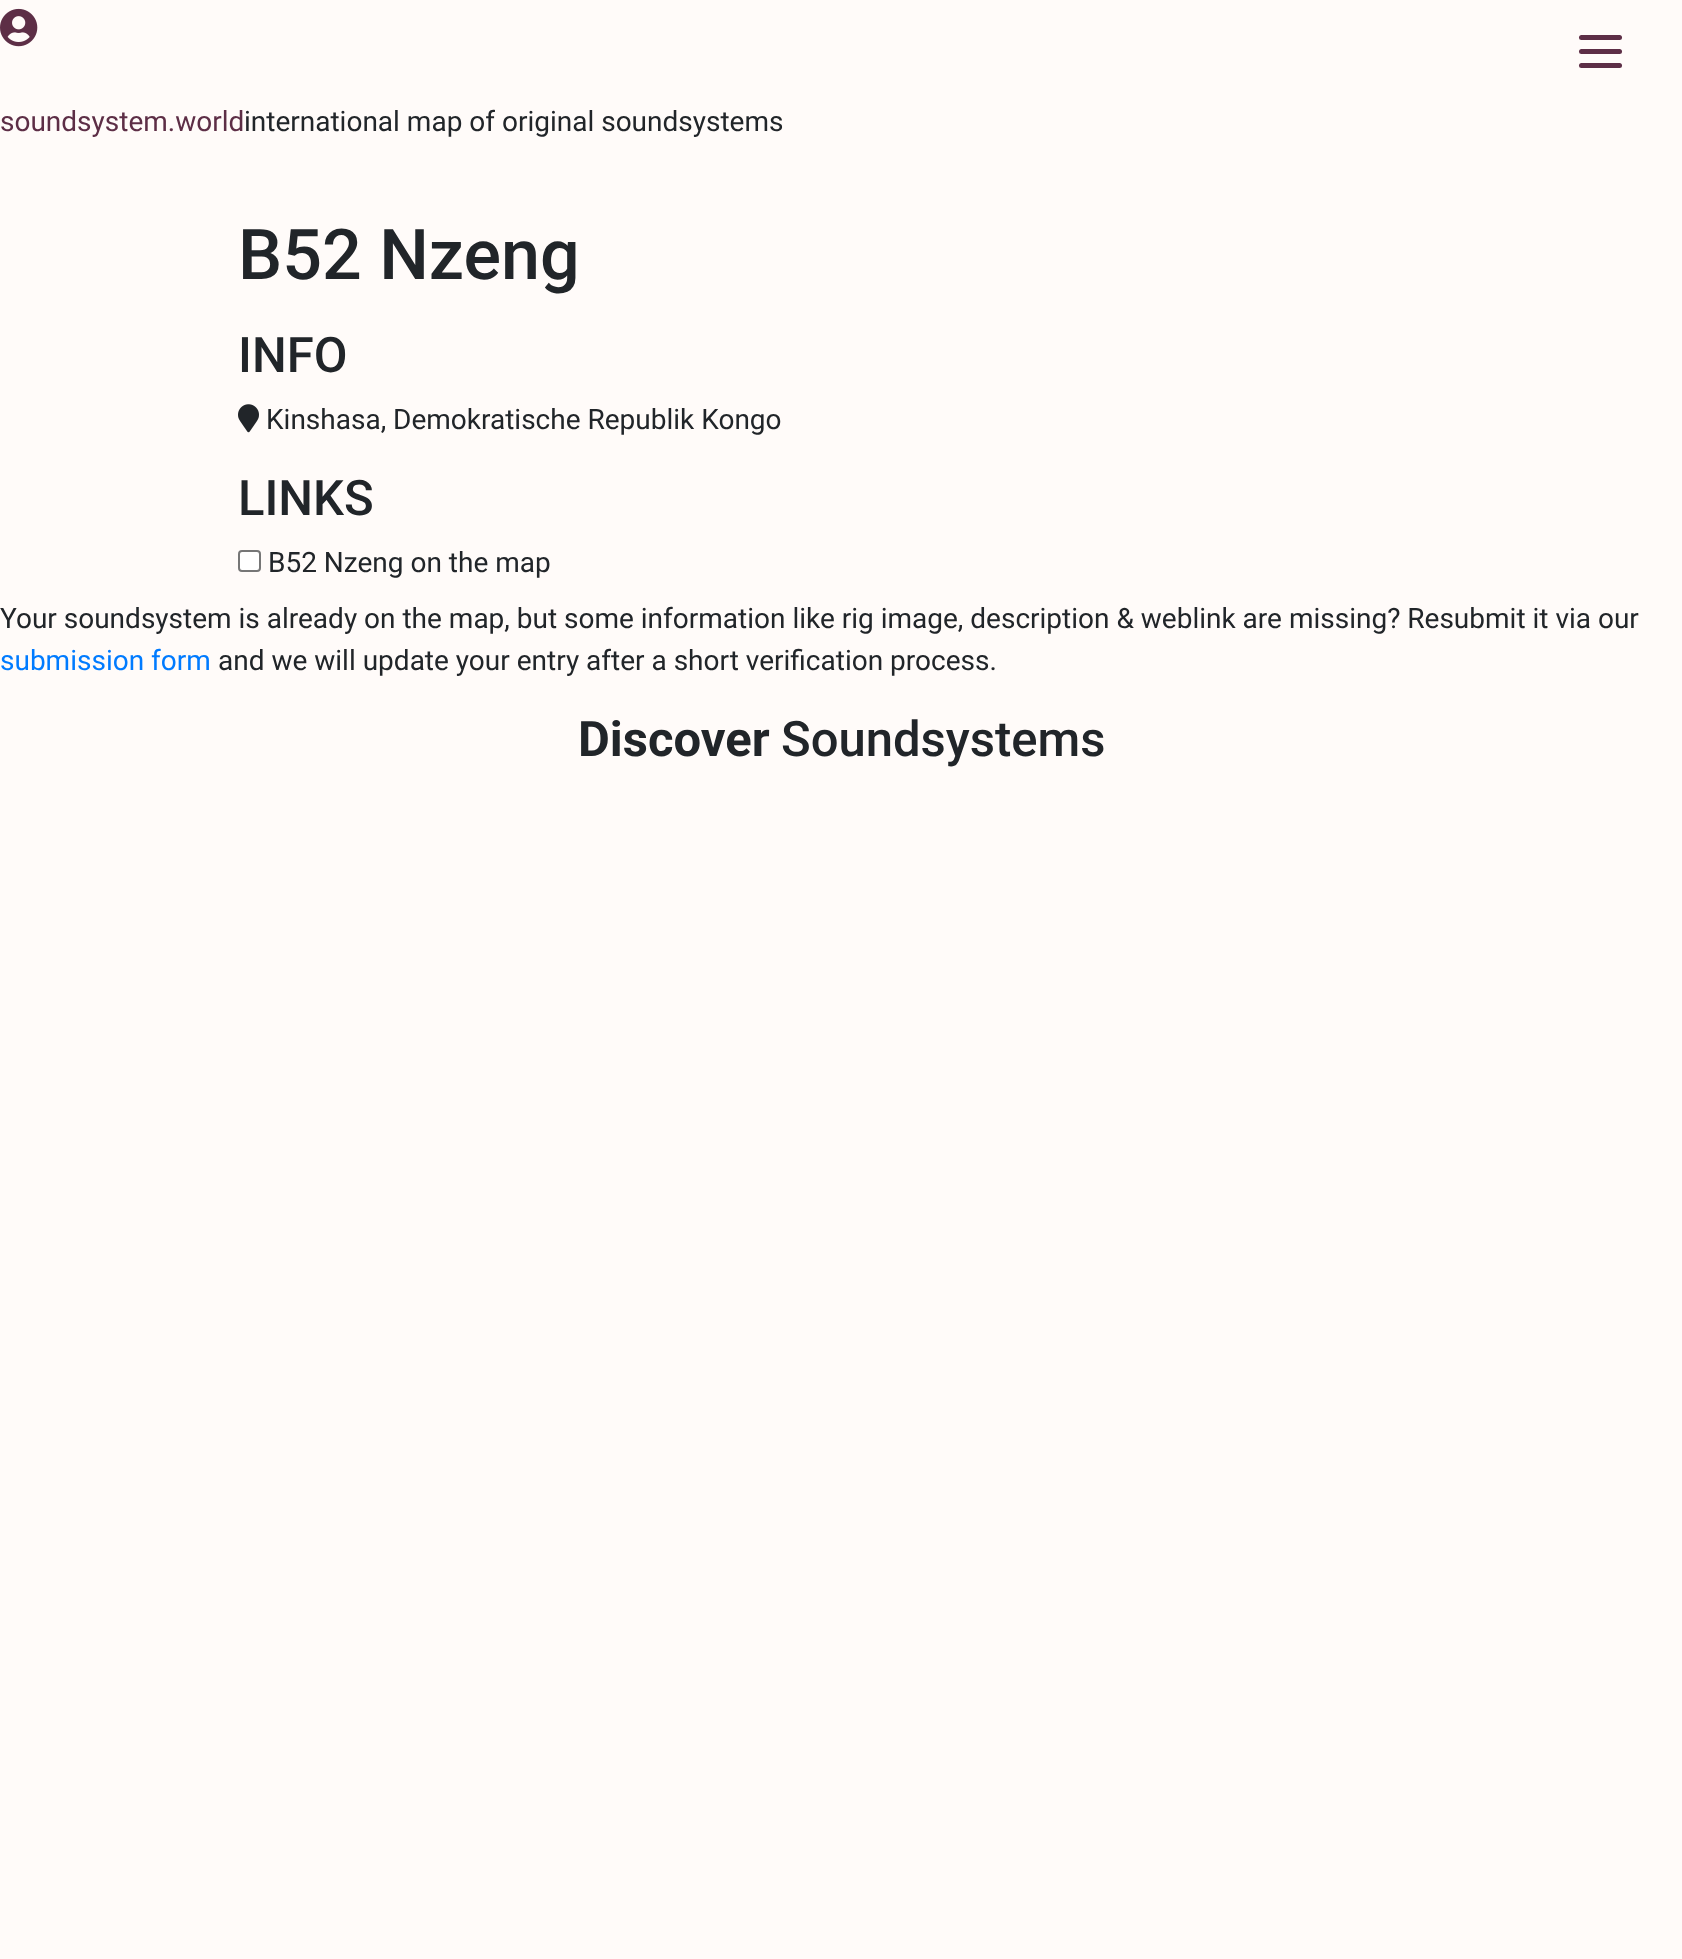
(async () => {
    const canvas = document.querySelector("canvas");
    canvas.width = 1682;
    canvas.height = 1959;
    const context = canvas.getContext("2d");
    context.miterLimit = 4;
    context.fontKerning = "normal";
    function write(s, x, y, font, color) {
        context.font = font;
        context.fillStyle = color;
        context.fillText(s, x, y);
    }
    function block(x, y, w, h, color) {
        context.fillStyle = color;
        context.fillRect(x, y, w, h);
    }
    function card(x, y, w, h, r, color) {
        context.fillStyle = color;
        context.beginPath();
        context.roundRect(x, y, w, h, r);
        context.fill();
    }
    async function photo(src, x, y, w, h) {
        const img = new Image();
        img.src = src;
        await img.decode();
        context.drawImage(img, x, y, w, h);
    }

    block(0, 0, 1682, 1959, "rgb(255, 251, 249)");
    card(1579, 63, 43, 5, 2.5, "rgb(93, 46, 70)");
    card(1579, 35, 43, 5, 2.5, "rgb(93, 46, 70)");
    card(1579, 49, 43, 5, 2.5, "rgb(93, 46, 70)");
    await photo("media/1.png", 0, 8, 38, 39);
    write("soundsystem.world", 0, 131, "28px Roboto", "rgb(93, 46, 70)");
    write("international map of original soundsystems", 244, 131, "28px Roboto", "rgb(33, 37, 41)");
    write("B52 Nzeng", 238, 279, "500 70px Roboto", "rgb(33, 37, 41)");
    write("INFO", 238, 372, "500 49px Roboto", "rgb(33, 37, 41)");
    await photo("media/2.png", 238, 404, 21, 29);
    write("Kinshasa, Demokratische Republik Kongo", 266, 429, "28px Roboto", "rgb(33, 37, 41)");
    write("LINKS", 238, 515, "500 49px Roboto", "rgb(33, 37, 41)");
    context.fillStyle = "rgb(255, 255, 255)";
    context.beginPath();
    context.roundRect(239, 551, 21, 20, 3);
    context.fill();
    context.strokeStyle = "rgb(118, 118, 118)";
    context.lineWidth = 2;
    context.stroke();
    write("B52 Nzeng on the map", 268, 572, "28px Roboto", "rgb(33, 37, 41)");
    write("Your soundsystem is already on the map, but some information like rig image, description & weblink are missing? Resubmit it via our", 0, 628, "28px Roboto", "rgb(33, 37, 41)");
    write("submission form", 0, 670, "28px Roboto", "rgb(0, 123, 255)");
    write("and we will update your entry after a short verification process.", 218, 670, "28px Roboto", "rgb(33, 37, 41)");
    write("Discover", 578, 756, "bold 49px Roboto", "rgb(33, 37, 41)");
    write("Soundsystems", 781, 756, "500 49px Roboto", "rgb(33, 37, 41)");
})();
